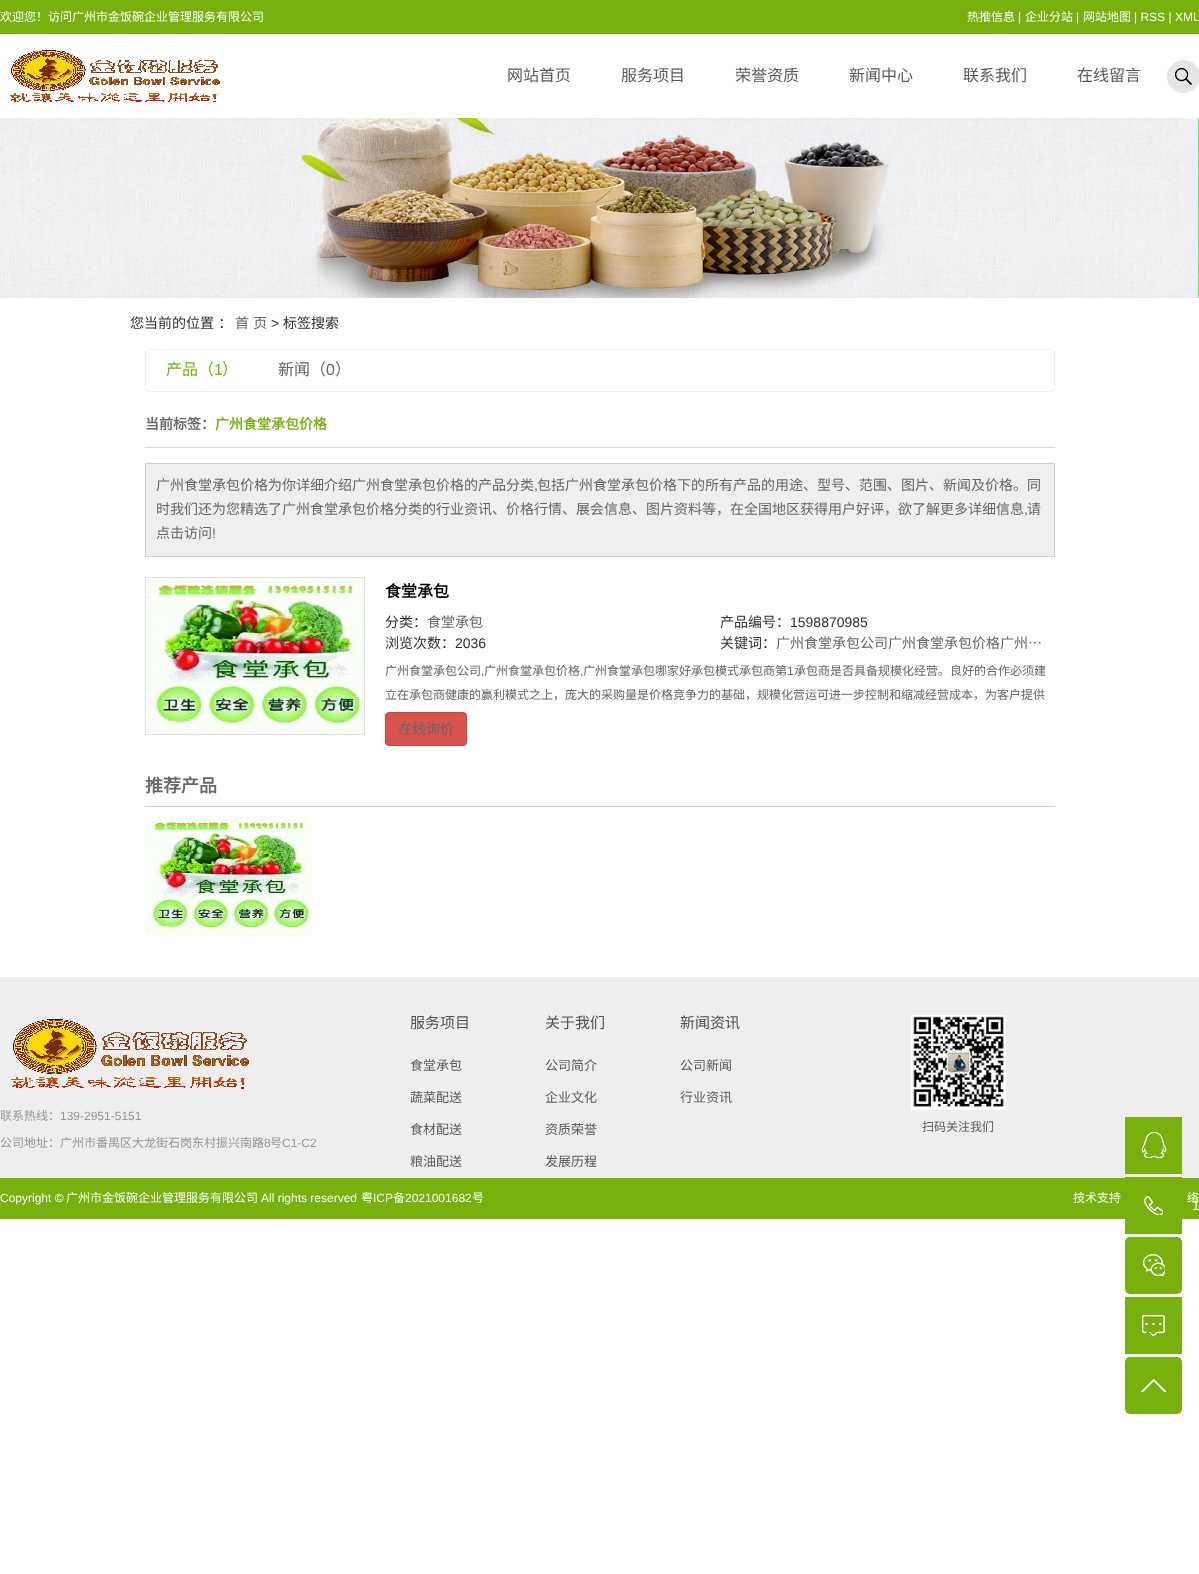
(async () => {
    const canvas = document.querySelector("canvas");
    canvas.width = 1199;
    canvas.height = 1574;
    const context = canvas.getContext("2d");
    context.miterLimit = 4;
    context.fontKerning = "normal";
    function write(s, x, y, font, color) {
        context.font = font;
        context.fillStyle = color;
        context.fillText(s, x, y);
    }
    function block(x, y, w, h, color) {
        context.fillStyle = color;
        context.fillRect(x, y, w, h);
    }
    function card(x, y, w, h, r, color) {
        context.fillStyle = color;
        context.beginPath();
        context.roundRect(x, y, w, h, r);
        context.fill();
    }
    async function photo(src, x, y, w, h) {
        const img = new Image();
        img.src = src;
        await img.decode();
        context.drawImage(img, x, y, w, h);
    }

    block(0, 0, 1199, 1574, "rgb(255, 255, 255)");
    block(0, 0, 1199, 34, "rgb(120, 176, 14)");
    write("欢迎您！访问广州市金饭碗企业管理服务有限公司", 0, 21, "12px Noto Sans CJK SC", "rgb(255, 255, 255)");
    write("热推信息", 967, 21, "12px Noto Sans CJK SC", "rgb(255, 255, 255)");
    write("|", 1018, 21, "12px Liberation Sans", "rgb(255, 255, 255)");
    write("企业分站", 1025, 21, "12px Noto Sans CJK SC", "rgb(255, 255, 255)");
    write("|", 1076, 21, "12px Liberation Sans", "rgb(255, 255, 255)");
    write("网站地图", 1083, 21, "12px Noto Sans CJK SC", "rgb(255, 255, 255)");
    write("| RSS | XML", 1134, 21, "12px Liberation Sans", "rgb(255, 255, 255)");
    await photo("media/1.png", 10, 50, 210, 52);
    write("网站首页", 507, 81, "16px Noto Sans CJK SC", "rgb(90, 90, 90)");
    write("服务项目", 621, 81, "16px Noto Sans CJK SC", "rgb(90, 90, 90)");
    write("荣誉资质", 735, 81, "16px Noto Sans CJK SC", "rgb(90, 90, 90)");
    write("新闻中心", 849, 81, "16px Noto Sans CJK SC", "rgb(90, 90, 90)");
    write("联系我们", 963, 81, "16px Noto Sans CJK SC", "rgb(90, 90, 90)");
    write("在线留言", 1077, 81, "16px Noto Sans CJK SC", "rgb(90, 90, 90)");
    await photo("media/2.png", 1167, 60, 32, 33);
    await photo("media/3.png", 0, 118, 1199, 180);
    context.wordSpacing = "1px";
    write("您当前的位置 ：", 130, 328, "14px Noto Sans CJK SC", "rgb(47, 47, 47)");
    write("首 页", 235, 328, "14px Noto Sans CJK SC", "rgb(102, 102, 102)");
    context.wordSpacing = "0px";
    write(">", 271, 328, "14px Liberation Sans", "rgb(47, 47, 47)");
    write("标签搜索", 283, 328, "14px Noto Sans CJK SC", "rgb(47, 47, 47)");
    context.beginPath();
    context.roundRect(145.5, 349.5, 909, 42, 4.5);
    context.strokeStyle = "rgb(239, 239, 239)";
    context.stroke();
    write("产品（", 166, 375, "16px Noto Sans CJK SC", "rgb(120, 176, 14)");
    write("1", 214, 375, "16px Liberation Sans", "rgb(120, 176, 14)");
    write("）", 222, 375, "16px Noto Sans CJK SC", "rgb(120, 176, 14)");
    write("新闻（", 278, 375, "16px Noto Sans CJK SC", "rgb(102, 102, 102)");
    write("0", 326, 375, "16px Liberation Sans", "rgb(102, 102, 102)");
    write("）", 335, 375, "16px Noto Sans CJK SC", "rgb(102, 102, 102)");
    block(145, 447, 910, 1, "rgb(214, 219, 225)");
    write("当前标签：", 145, 429, "bold 14px Noto Sans CJK SC", "rgb(102, 102, 102)");
    write("广州食堂承包价格", 215, 429, "bold 14px Noto Sans CJK SC", "rgb(120, 176, 14)");
    context.fillStyle = "rgb(239, 239, 239)";
    context.beginPath();
    context.rect(145.5, 463.5, 909, 93);
    context.fill();
    context.strokeStyle = "rgb(204, 204, 204)";
    context.stroke();
    write("广州食堂承包价格为你详细介绍广州食堂承包价格的产品分类", 156, 490, "14px Noto Sans CJK SC", "rgb(102, 102, 102)");
    write(",", 534, 490, "14px Liberation Sans", "rgb(102, 102, 102)");
    write("包括广州食堂承包价格下的所有产品的用途、型号、范围、图片、新闻及价格。同", 537, 490, "14px Noto Sans CJK SC", "rgb(102, 102, 102)");
    write("时我们还为您精选了广州食堂承包价格分类的行业资讯、价格行情、展会信息、图片资料等，在全国地区获得用户好评，欲了解更多详细信息", 156, 514, "14px Noto Sans CJK SC", "rgb(102, 102, 102)");
    write(",", 1024, 514, "14px Liberation Sans", "rgb(102, 102, 102)");
    write("请", 1027, 514, "14px Noto Sans CJK SC", "rgb(102, 102, 102)");
    write("点击访问", 156, 538, "14px Noto Sans CJK SC", "rgb(102, 102, 102)");
    write("!", 212, 538, "14px Liberation Sans", "rgb(102, 102, 102)");
    context.strokeStyle = "rgb(225, 225, 225)";
    context.strokeRect(145.5, 577.5, 219, 157);
    await photo("media/4.png", 146, 578, 218, 156);
    write("食堂承包", 385, 597, "bold 16px Noto Sans CJK SC", "rgb(0, 0, 0)");
    write("分类：", 385, 627, "14px Noto Sans CJK SC", "rgb(47, 47, 47)");
    write("食堂承包", 427, 627, "14px Noto Sans CJK SC", "rgb(102, 102, 102)");
    write("产品编号：", 720, 627, "14px Noto Sans CJK SC", "rgb(47, 47, 47)");
    write("1598870985", 790, 627, "14px Liberation Sans", "rgb(47, 47, 47)");
    write("浏览次数：", 385, 648, "14px Noto Sans CJK SC", "rgb(47, 47, 47)");
    write("2036", 455, 648, "14px Liberation Sans", "rgb(47, 47, 47)");
    write("关键词：", 720, 648, "14px Noto Sans CJK SC", "rgb(47, 47, 47)");
    write("广州食堂承包公司广州食堂承包价格广州…", 776, 648, "14px Noto Sans CJK SC", "rgb(102, 102, 102)");
    write("广州食堂承包公司", 385, 675, "12px Noto Sans CJK SC", "rgb(102, 102, 102)");
    write(",", 481, 675, "12px Liberation Sans", "rgb(102, 102, 102)");
    write("广州食堂承包价格", 484, 675, "12px Noto Sans CJK SC", "rgb(102, 102, 102)");
    write(",", 580, 675, "12px Liberation Sans", "rgb(102, 102, 102)");
    write("广州食堂承包哪家好承包模式承包商第", 583, 675, "12px Noto Sans CJK SC", "rgb(102, 102, 102)");
    write("1", 787, 675, "12px Liberation Sans", "rgb(102, 102, 102)");
    write("承包商是否具备规模化经营。良好的合作必须建", 794, 675, "12px Noto Sans CJK SC", "rgb(102, 102, 102)");
    write("立在承包商健康的赢利模式之上，庞大的采购量是价格竞争力的基础，规模化营运可进一步控制和缩减经营成本，为客户提供", 385, 699, "12px Noto Sans CJK SC", "rgb(102, 102, 102)");
    context.fillStyle = "rgb(217, 83, 79)";
    context.beginPath();
    context.roundRect(385.5, 712.5, 81, 33, 3.5);
    context.fill();
    context.strokeStyle = "rgb(212, 63, 58)";
    context.stroke();
    write("在线询价", 398, 734, "14px Noto Sans CJK SC", "rgb(102, 102, 102)");
    block(145, 806, 910, 1, "rgb(204, 204, 204)");
    write("推荐产品", 145, 792, "bold 18px Noto Sans CJK SC", "rgb(102, 102, 102)");
    await photo("media/5.png", 145, 817, 167, 119);
    block(0, 977, 1199, 201, "rgb(238, 238, 238)");
    await photo("media/6.png", 11, 1019, 238, 70);
    write("联系热线：", 0, 1120, "12px Noto Sans CJK SC", "rgb(150, 150, 150)");
    write("139-2951-5151", 60, 1120, "12px Liberation Sans", "rgb(150, 150, 150)");
    write("公司地址：广州市番禺区大龙街石岗东村振兴南路", 0, 1147, "12px Noto Sans CJK SC", "rgb(150, 150, 150)");
    write("8", 264, 1147, "12px Liberation Sans", "rgb(150, 150, 150)");
    write("号", 270, 1147, "12px Noto Sans CJK SC", "rgb(150, 150, 150)");
    write("C1-C2", 282, 1147, "12px Liberation Sans", "rgb(150, 150, 150)");
    write("服务项目", 410, 1028, "15px Noto Sans CJK SC", "rgb(80, 80, 80)");
    write("食堂承包", 410, 1070, "13px Noto Sans CJK SC", "rgb(90, 90, 90)");
    write("蔬菜配送", 410, 1102, "13px Noto Sans CJK SC", "rgb(90, 90, 90)");
    write("食材配送", 410, 1134, "13px Noto Sans CJK SC", "rgb(90, 90, 90)");
    write("粮油配送", 410, 1166, "13px Noto Sans CJK SC", "rgb(90, 90, 90)");
    write("关于我们", 545, 1028, "15px Noto Sans CJK SC", "rgb(80, 80, 80)");
    write("公司简介", 545, 1070, "13px Noto Sans CJK SC", "rgb(90, 90, 90)");
    write("企业文化", 545, 1102, "13px Noto Sans CJK SC", "rgb(90, 90, 90)");
    write("资质荣誉", 545, 1134, "13px Noto Sans CJK SC", "rgb(90, 90, 90)");
    write("发展历程", 545, 1166, "13px Noto Sans CJK SC", "rgb(90, 90, 90)");
    write("新闻资讯", 680, 1028, "15px Noto Sans CJK SC", "rgb(80, 80, 80)");
    write("公司新闻", 680, 1070, "13px Noto Sans CJK SC", "rgb(90, 90, 90)");
    write("行业资讯", 680, 1102, "13px Noto Sans CJK SC", "rgb(90, 90, 90)");
    await photo("media/7.png", 911, 1015, 95, 95);
    write("扫码关注我们", 922, 1131, "12px Noto Sans CJK SC", "rgb(90, 90, 90)");
    block(0, 1178, 1199, 41, "rgb(120, 176, 14)");
    write("Copyright ©", 0, 1202, "12px Liberation Sans", "rgb(255, 255, 255)");
    write("广州市金饭碗企业管理服务有限公司", 66, 1202, "12px Noto Sans CJK SC", "rgb(255, 255, 255)");
    write("All rights reserved", 261, 1202, "12px Liberation Sans", "rgb(255, 255, 255)");
    write("粤", 361, 1202, "12px Noto Sans CJK SC", "rgb(255, 255, 255)");
    write("ICP", 373, 1202, "12px Liberation Sans", "rgb(255, 255, 255)");
    write("备", 393, 1202, "12px Noto Sans CJK SC", "rgb(255, 255, 255)");
    write("2021001682", 405, 1202, "12px Liberation Sans", "rgb(255, 255, 255)");
    write("号", 472, 1202, "12px Noto Sans CJK SC", "rgb(255, 255, 255)");
    context.wordSpacing = "1px";
    write("技术支持", 1073, 1202, "12px Noto Sans CJK SC", "rgb(255, 255, 255)");
    context.wordSpacing = "0px";
    write("络", 1187, 1202, "12px Noto Sans CJK SC", "rgb(255, 255, 255)");
    block(1125, 1117, 57, 57, "rgb(120, 176, 14)");
    await photo("media/8.png", 1141, 1131, 26, 28);
    block(1125, 1177, 57, 57, "rgb(120, 176, 14)");
    await photo("media/9.png", 1144, 1196, 19, 19);
    write("1", 1192, 1210, "14px Liberation Sans", "rgb(255, 255, 255)");
    card(1125, 1237, 57, 57, 5, "rgb(120, 176, 14)");
    await photo("media/10.png", 1143, 1254, 22, 22);
    block(1125, 1297, 57, 57, "rgb(120, 176, 14)");
    await photo("media/11.png", 1142, 1315, 23, 21);
    card(1125, 1357, 57, 57, 5, "rgb(120, 176, 14)");
    await photo("media/12.png", 1141, 1379, 25, 13);
})();
